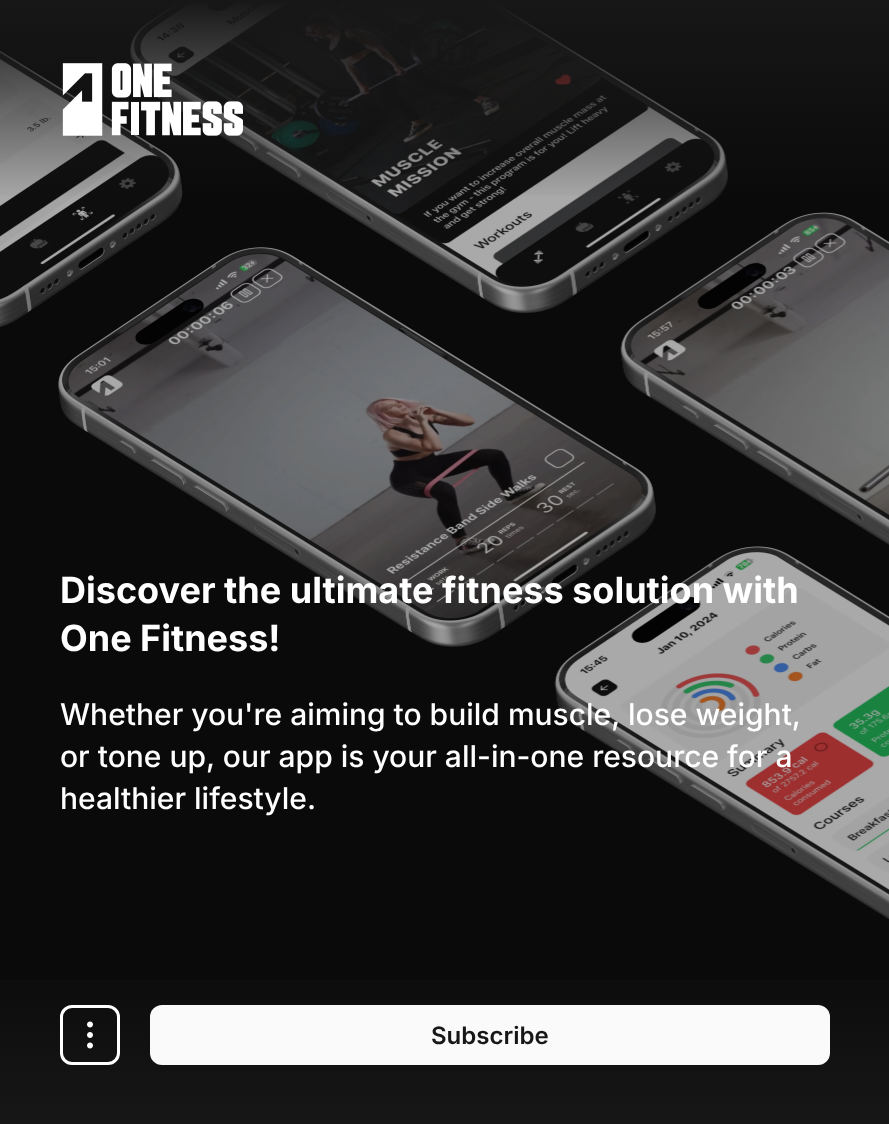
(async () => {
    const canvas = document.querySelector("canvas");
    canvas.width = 889;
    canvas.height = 1124;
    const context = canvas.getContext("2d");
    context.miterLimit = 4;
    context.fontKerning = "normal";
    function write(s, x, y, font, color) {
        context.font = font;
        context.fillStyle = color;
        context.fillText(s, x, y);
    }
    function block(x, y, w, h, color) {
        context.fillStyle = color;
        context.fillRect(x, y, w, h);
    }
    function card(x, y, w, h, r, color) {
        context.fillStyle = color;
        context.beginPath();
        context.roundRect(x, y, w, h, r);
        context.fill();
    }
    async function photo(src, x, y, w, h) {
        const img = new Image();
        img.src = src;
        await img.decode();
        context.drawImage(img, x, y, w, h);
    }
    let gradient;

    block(0, 0, 889, 1124, "rgb(10, 10, 10)");
    await photo("media/2.png", 0, 1, 889, 918);
    gradient = context.createLinearGradient(445, 0, 445, 200);
    gradient.addColorStop(0, "rgb(23, 23, 23)");
    gradient.addColorStop(1, "rgba(23, 23, 23, 0)");
    context.fillStyle = gradient;
    context.fillRect(0, 0, 889, 196);
    await photo("media/1.png", 62, 63, 181, 73);
    write("Discover the ultimate fitness solution with", 60, 603, "bold 36px Inter", "rgb(255, 255, 255)");
    write("One Fitness!", 60, 651, "bold 36px Inter", "rgb(255, 255, 255)");
    write("Whether you're aiming to build muscle, lose weight,", 60, 725, "500 30px Inter", "rgb(255, 255, 255)");
    write("or tone up, our app is your all-in-one resource for a", 60, 767, "500 30px Inter", "rgb(255, 255, 255)");
    write("healthier lifestyle.", 60, 809, "500 30px Inter", "rgb(255, 255, 255)");
    gradient = context.createLinearGradient(445, 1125, 445, 945);
    gradient.addColorStop(0, "rgb(23, 23, 23)");
    gradient.addColorStop(1, "rgb(10, 10, 10)");
    context.fillStyle = gradient;
    context.fillRect(0, 980, 889, 144);
    context.beginPath();
    context.roundRect(61.5, 1006.5, 57, 57, 10.5);
    context.strokeStyle = "rgb(255, 255, 255)";
    context.lineWidth = 3;
    context.stroke();
    await photo("media/3.png", 87, 1021, 6, 28);
    card(150, 1005, 680, 60, 12, "rgb(250, 250, 250)");
    write("Subscribe", 431, 1044, "600 24px Inter", "rgb(23, 23, 23)");
})();
